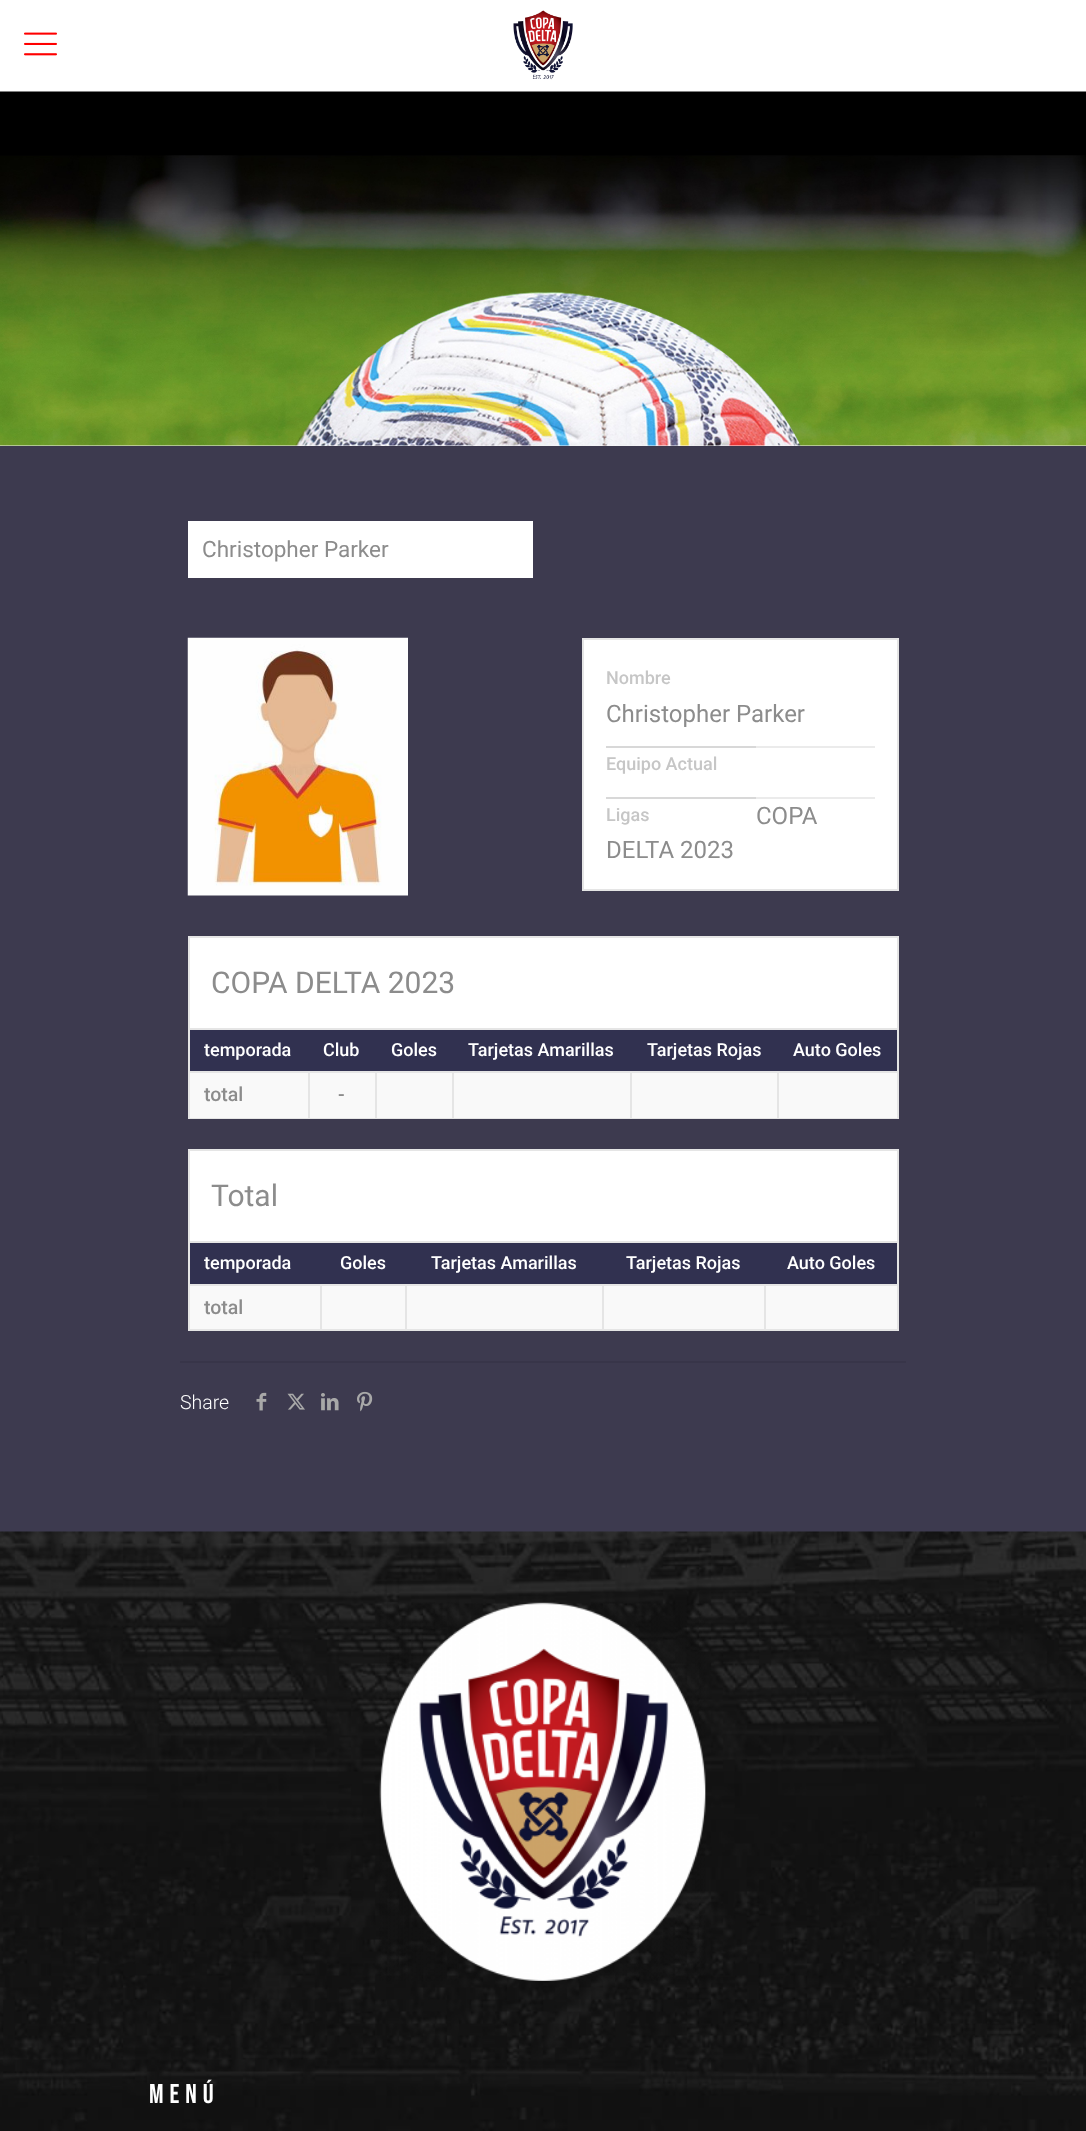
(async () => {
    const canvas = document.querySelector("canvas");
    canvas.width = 1086;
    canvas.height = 2131;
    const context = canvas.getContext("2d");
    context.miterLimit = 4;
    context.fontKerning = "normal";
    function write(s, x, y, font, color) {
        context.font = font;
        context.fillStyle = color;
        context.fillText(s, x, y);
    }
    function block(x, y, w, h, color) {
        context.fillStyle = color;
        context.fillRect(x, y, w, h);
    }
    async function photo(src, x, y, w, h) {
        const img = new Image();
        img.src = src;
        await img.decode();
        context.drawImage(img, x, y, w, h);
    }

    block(0, 0, 1086, 2131, "rgb(61, 58, 79)");
    block(0, 0, 1086, 92, "rgb(255, 255, 255)");
    await photo("media/1.png", 24, 32, 33, 24);
    await photo("media/2.png", 513, 10, 60, 70);
    block(0, 445, 1086, 1, "rgb(247, 247, 247)");
    await photo("media/3.png", 0, 91, 1086, 355);
    block(188, 521, 345, 57, "rgb(255, 255, 255)");
    write("Christopher Parker", 202, 557, "22.5px Roboto", "rgb(140, 140, 140)");
    await photo("media/4.png", 187, 637, 221, 259);
    context.fillStyle = "rgb(255, 255, 255)";
    context.beginPath();
    context.rect(583, 639, 315, 251);
    context.fill();
    context.strokeStyle = "rgb(229, 229, 229)";
    context.lineWidth = 2;
    context.stroke();
    write("Nombre", 606, 684, "500 18px Roboto", "rgb(198, 198, 198)");
    write("Christopher Parker", 606, 722, "24px Roboto", "rgb(140, 140, 140)");
    block(756, 746, 119, 2, "rgb(235, 235, 235)");
    block(606, 746, 150, 2, "rgb(216, 216, 216)");
    write("Equipo Actual", 606, 770, "500 18px Roboto", "rgb(198, 198, 198)");
    block(756, 797, 119, 2, "rgb(235, 235, 235)");
    write("COPA", 756, 824, "24px Roboto", "rgb(140, 140, 140)");
    write("DELTA 2023", 606, 858, "24px Roboto", "rgb(140, 140, 140)");
    block(606, 797, 150, 2, "rgb(216, 216, 216)");
    write("Ligas", 606, 821, "500 18px Roboto", "rgb(198, 198, 198)");
    block(190, 938, 707, 90, "rgb(255, 255, 255)");
    block(188, 936, 711, 2, "rgb(229, 229, 229)");
    block(897, 936, 2, 92, "rgb(229, 229, 229)");
    block(188, 936, 2, 92, "rgb(229, 229, 229)");
    write("COPA DELTA 2023", 211, 993, "30px Roboto", "rgb(140, 140, 140)");
    block(188, 1028, 711, 2, "rgb(229, 229, 229)");
    block(897, 1028, 2, 91, "rgb(229, 229, 229)");
    block(188, 1118, 711, 1, "rgb(229, 229, 229)");
    block(188, 1028, 2, 91, "rgb(229, 229, 229)");
    block(190, 1030, 707, 41, "rgb(49, 49, 80)");
    write("temporada", 204, 1056, "500 18px Roboto", "rgb(255, 255, 255)");
    write("Club", 323, 1056, "500 18px Roboto", "rgb(255, 255, 255)");
    write("Goles", 391, 1056, "500 18px Roboto", "rgb(255, 255, 255)");
    write("Tarjetas Amarillas", 468, 1056, "500 18px Roboto", "rgb(255, 255, 255)");
    write("Tarjetas Rojas", 647, 1056, "500 18px Roboto", "rgb(255, 255, 255)");
    write("Auto Goles", 793, 1056, "500 18px Roboto", "rgb(255, 255, 255)");
    block(190, 1073, 118, 45, "rgb(249, 249, 249)");
    block(777, 1071, 122, 2, "rgb(229, 229, 229)");
    block(777, 1071, 2, 48, "rgb(229, 229, 229)");
    block(630, 1071, 149, 2, "rgb(229, 229, 229)");
    block(630, 1071, 2, 48, "rgb(229, 229, 229)");
    block(452, 1071, 180, 2, "rgb(229, 229, 229)");
    block(452, 1071, 2, 48, "rgb(229, 229, 229)");
    block(375, 1071, 78, 2, "rgb(229, 229, 229)");
    block(375, 1071, 2, 48, "rgb(229, 229, 229)");
    block(308, 1071, 69, 2, "rgb(229, 229, 229)");
    block(308, 1071, 2, 48, "rgb(229, 229, 229)");
    block(188, 1071, 121, 2, "rgb(229, 229, 229)");
    write("total", 204, 1101, "500 19.5px Roboto", "rgb(140, 140, 140)");
    block(310, 1073, 65, 45, "rgb(249, 249, 249)");
    write("-", 338, 1101, "500 19.5px Roboto", "rgb(140, 140, 140)");
    block(377, 1073, 75, 45, "rgb(249, 249, 249)");
    block(454, 1073, 176, 45, "rgb(249, 249, 249)");
    block(632, 1073, 145, 45, "rgb(249, 249, 249)");
    block(779, 1073, 118, 45, "rgb(249, 249, 249)");
    block(190, 1151, 707, 90, "rgb(255, 255, 255)");
    block(188, 1149, 711, 2, "rgb(229, 229, 229)");
    block(897, 1149, 2, 92, "rgb(229, 229, 229)");
    block(188, 1149, 2, 92, "rgb(229, 229, 229)");
    write("Total", 211, 1206, "30px Roboto", "rgb(140, 140, 140)");
    block(188, 1241, 711, 2, "rgb(229, 229, 229)");
    block(897, 1241, 2, 90, "rgb(229, 229, 229)");
    block(188, 1329, 711, 2, "rgb(229, 229, 229)");
    block(188, 1241, 2, 90, "rgb(229, 229, 229)");
    block(190, 1243, 707, 41, "rgb(49, 49, 80)");
    write("temporada", 204, 1269, "500 18px Roboto", "rgb(255, 255, 255)");
    write("Goles", 340, 1269, "500 18px Roboto", "rgb(255, 255, 255)");
    write("Tarjetas Amarillas", 431, 1269, "500 18px Roboto", "rgb(255, 255, 255)");
    write("Tarjetas Rojas", 626, 1269, "500 18px Roboto", "rgb(255, 255, 255)");
    write("Auto Goles", 787, 1269, "500 18px Roboto", "rgb(255, 255, 255)");
    block(190, 1286, 130, 43, "rgb(249, 249, 249)");
    block(764, 1284, 135, 2, "rgb(229, 229, 229)");
    block(764, 1284, 2, 47, "rgb(229, 229, 229)");
    block(602, 1284, 163, 2, "rgb(229, 229, 229)");
    block(602, 1284, 2, 47, "rgb(229, 229, 229)");
    block(405, 1284, 198, 2, "rgb(229, 229, 229)");
    block(405, 1284, 2, 47, "rgb(229, 229, 229)");
    block(320, 1284, 87, 2, "rgb(229, 229, 229)");
    block(320, 1284, 2, 47, "rgb(229, 229, 229)");
    block(188, 1284, 133, 2, "rgb(229, 229, 229)");
    write("total", 204, 1314, "500 19.5px Roboto", "rgb(140, 140, 140)");
    block(322, 1286, 83, 43, "rgb(249, 249, 249)");
    block(407, 1286, 195, 43, "rgb(249, 249, 249)");
    block(604, 1286, 160, 43, "rgb(249, 249, 249)");
    block(766, 1286, 131, 43, "rgb(249, 249, 249)");
    block(180, 1361, 726, 2, "rgb(56, 53, 73)");
    write("Share", 180, 1409, "300 19.5px Roboto", "rgb(255, 255, 255)");
    await photo("media/5.png", 256, 1392, 11, 19);
    await photo("media/6.png", 287, 1393, 18, 17);
    await photo("media/7.png", 321, 1393, 18, 18);
    await photo("media/8.png", 357, 1391, 16, 21);
    await photo("media/9.png", 0, 1531, 1086, 600);
    await photo("media/10.png", 379, 1602, 327, 379);
    context.letterSpacing = "6px";
    write("Menú", 149, 2103, "27px Bebas Neue", "rgb(255, 255, 255)");
})();
